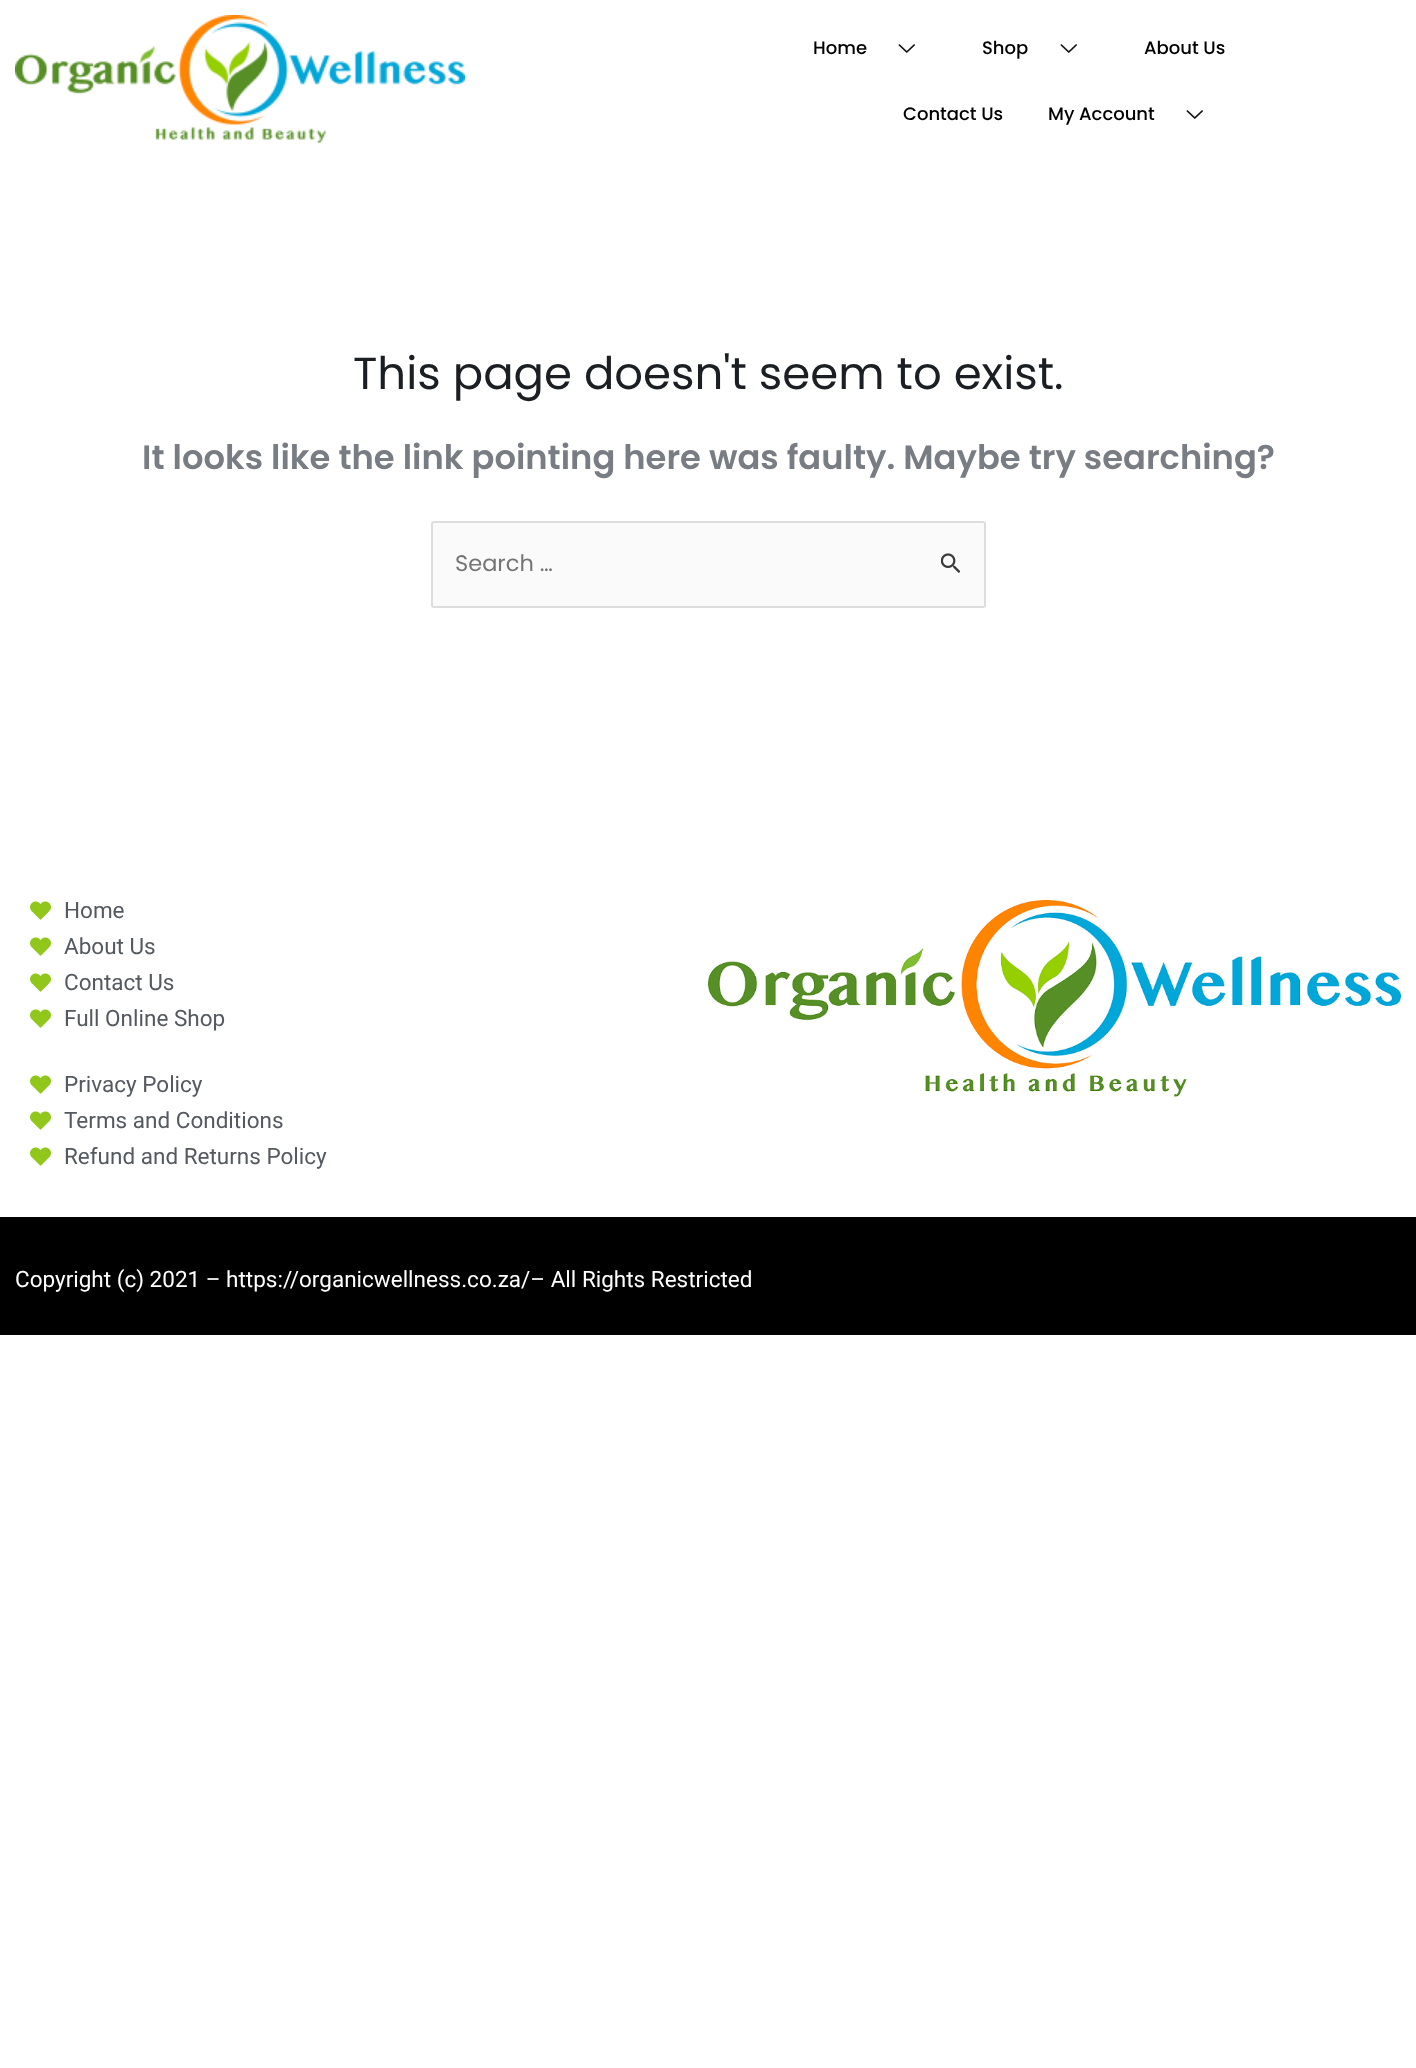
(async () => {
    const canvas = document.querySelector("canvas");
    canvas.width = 1416;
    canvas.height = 2068;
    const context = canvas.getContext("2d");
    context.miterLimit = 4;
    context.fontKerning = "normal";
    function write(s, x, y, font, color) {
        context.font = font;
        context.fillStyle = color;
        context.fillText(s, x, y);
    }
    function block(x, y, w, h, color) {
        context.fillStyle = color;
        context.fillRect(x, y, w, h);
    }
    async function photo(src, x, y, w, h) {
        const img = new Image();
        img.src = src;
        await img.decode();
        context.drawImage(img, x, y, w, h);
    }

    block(0, 0, 1416, 2068, "rgb(255, 255, 255)");
    await photo("media/1.png", 15, 15, 450, 128);
    write("Home", 813, 54, "500 18px Poppins", "rgb(0, 0, 0)");
    await photo("media/2.png", 898, 44, 17, 9);
    write("Shop", 982, 54, "500 18px Poppins", "rgb(0, 0, 0)");
    await photo("media/2.png", 1060, 44, 17, 9);
    write("About Us", 1144, 54, "500 18px Poppins", "rgb(0, 0, 0)");
    write("Contact Us", 903, 120, "500 18px Poppins", "rgb(0, 0, 0)");
    write("My Account", 1048, 120, "500 18px Poppins", "rgb(0, 0, 0)");
    await photo("media/2.png", 1186, 110, 17, 9);
    write("This page doesn't seem to exist.", 353, 389, "45px Poppins", "rgb(27, 31, 35)");
    write("It looks like the link pointing here was faulty. Maybe try searching?", 142, 469, "600 33.75px Poppins", "rgb(120, 124, 131)");
    context.fillStyle = "rgb(250, 250, 250)";
    context.beginPath();
    context.roundRect(432, 522, 553, 85, 2);
    context.fill();
    context.strokeStyle = "rgb(221, 221, 221)";
    context.lineWidth = 2;
    context.stroke();
    write("Search …", 455, 571, "22.5px Poppins", "rgb(117, 117, 117)");
    await photo("media/3.png", 941, 553, 19, 20);
    await photo("media/4.png", 30, 901, 21, 19);
    write("Home", 64, 918, "22.5px Roboto", "rgb(84, 89, 95)");
    await photo("media/4.png", 30, 937, 21, 19);
    write("About Us", 64, 954, "22.5px Roboto", "rgb(84, 89, 95)");
    await photo("media/4.png", 30, 973, 21, 19);
    write("Contact Us", 64, 990, "22.5px Roboto", "rgb(84, 89, 95)");
    await photo("media/4.png", 30, 1009, 21, 19);
    write("Full Online Shop", 64, 1026, "22.5px Roboto", "rgb(84, 89, 95)");
    await photo("media/4.png", 30, 1075, 21, 19);
    write("Privacy Policy", 64, 1092, "22.5px Roboto", "rgb(84, 89, 95)");
    await photo("media/4.png", 30, 1111, 21, 19);
    write("Terms and Conditions", 64, 1128, "22.5px Roboto", "rgb(84, 89, 95)");
    await photo("media/4.png", 30, 1147, 21, 19);
    write("Refund and Returns Policy", 64, 1164, "22.5px Roboto", "rgb(84, 89, 95)");
    await photo("media/5.png", 708, 900, 693, 197);
    block(0, 1217, 1416, 118, "rgb(0, 0, 0)");
    write("Copyright (c) 2021 – https://organicwellness.co.za/– All Rights Restricted", 15, 1287, "22.5px Roboto", "rgb(255, 255, 255)");
})();
